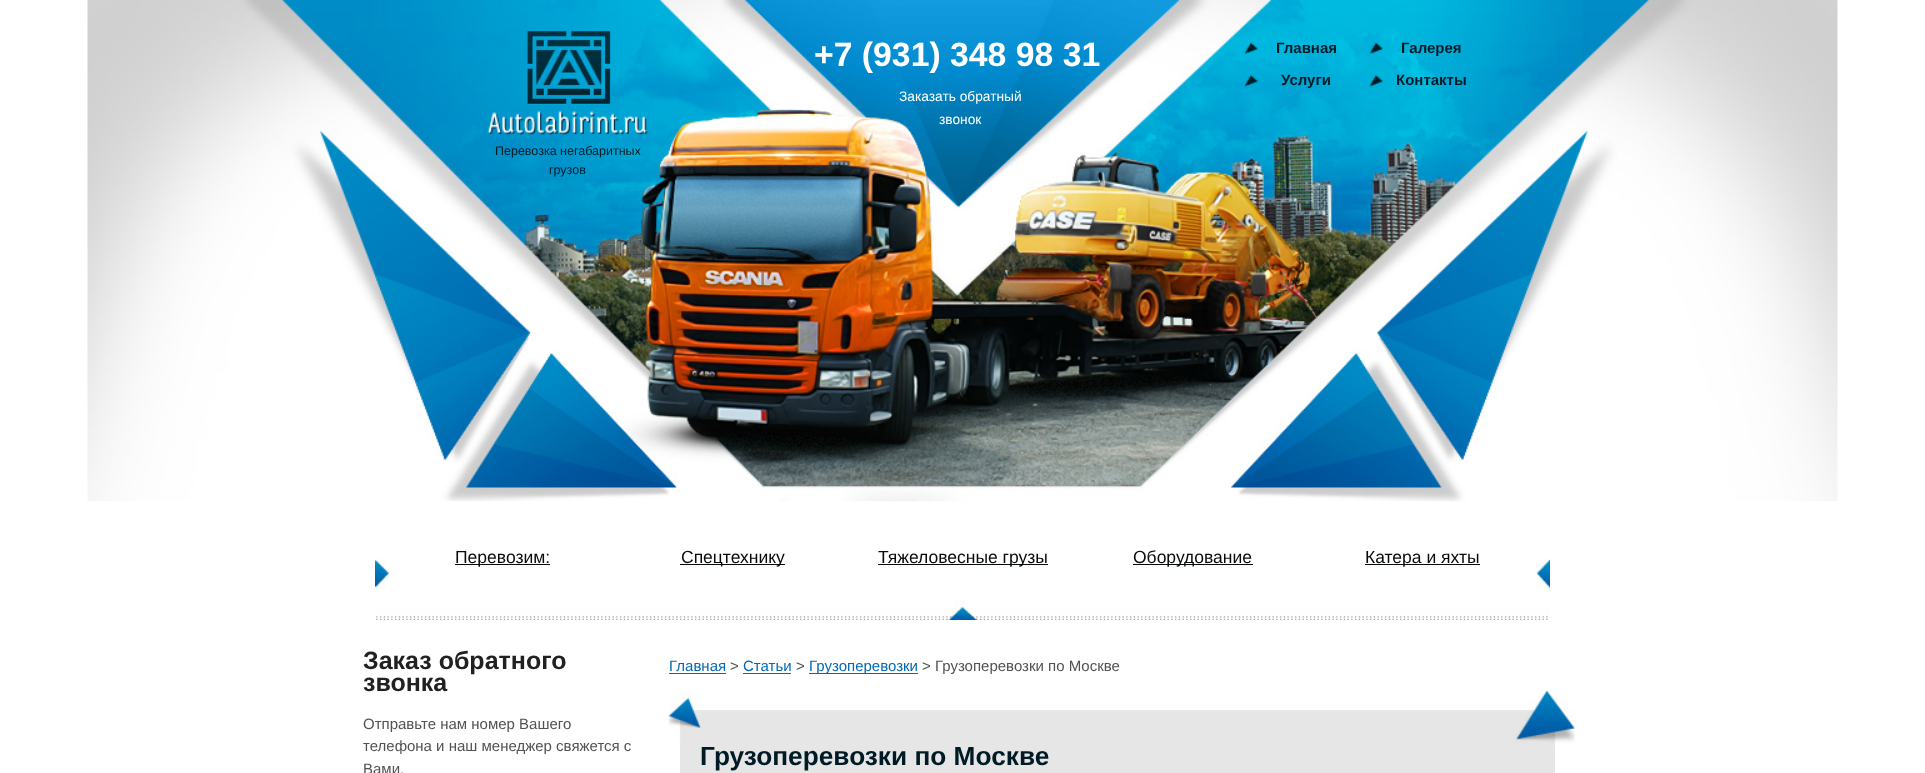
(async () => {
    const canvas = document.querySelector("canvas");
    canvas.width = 1925;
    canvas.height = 773;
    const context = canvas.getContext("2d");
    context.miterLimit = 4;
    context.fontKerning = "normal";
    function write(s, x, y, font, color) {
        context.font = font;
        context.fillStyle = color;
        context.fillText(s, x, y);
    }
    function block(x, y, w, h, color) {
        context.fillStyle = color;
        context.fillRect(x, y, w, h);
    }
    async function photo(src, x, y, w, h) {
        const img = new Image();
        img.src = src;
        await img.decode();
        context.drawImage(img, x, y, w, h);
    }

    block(0, 0, 1925, 773, "rgb(255, 255, 255)");
    await photo("media/1.png", 87, 0, 1751, 502);
    write("+7 (931) 348 98 31", 814, 66, "bold 33.75px Liberation Sans", "rgb(255, 255, 255)");
    write("Заказать обратный", 899, 101, "13.75px Liberation Sans", "rgb(255, 255, 255)");
    write("звонок", 939, 124, "13.75px Liberation Sans", "rgb(255, 255, 255)");
    await photo("media/2.png", 1244, 42, 14, 12);
    write("Главная", 1276, 53, "bold 15px Liberation Sans", "rgb(0, 27, 38)");
    await photo("media/3.png", 1369, 42, 14, 12);
    write("Галерея", 1401, 53, "bold 15px Liberation Sans", "rgb(0, 27, 38)");
    await photo("media/4.png", 1244, 75, 14, 12);
    write("Услуги", 1281, 85, "bold 15px Liberation Sans", "rgb(0, 27, 38)");
    await photo("media/5.png", 1369, 75, 14, 12);
    write("Контакты", 1396, 85, "bold 15px Liberation Sans", "rgb(0, 27, 38)");
    await photo("media/6.png", 487, 31, 161, 104);
    write("Перевозка негабаритных", 495, 155, "12.5px Liberation Sans", "rgb(0, 27, 38)");
    write("грузов", 549, 174, "12.5px Liberation Sans", "rgb(0, 27, 38)");
    await photo("media/7.png", 375, 559, 1175, 61);
    block(455, 564, 95, 1, "rgb(7, 12, 10)");
    write("Перевозим:", 455, 563, "17.5px Liberation Sans", "rgb(7, 12, 10)");
    block(680, 564, 105, 1, "rgb(7, 12, 10)");
    write("Спецтехнику", 681, 563, "17.5px Liberation Sans", "rgb(7, 12, 10)");
    block(878, 564, 170, 1, "rgb(7, 12, 10)");
    write("Тяжеловесные грузы", 878, 563, "17.5px Liberation Sans", "rgb(7, 12, 10)");
    block(1133, 564, 120, 1, "rgb(7, 12, 10)");
    write("Оборудование", 1133, 563, "17.5px Liberation Sans", "rgb(7, 12, 10)");
    block(1365, 564, 115, 1, "rgb(7, 12, 10)");
    write("Катера и яхты", 1365, 563, "17.5px Liberation Sans", "rgb(7, 12, 10)");
    write("Заказ обратного", 363, 669, "bold 25px Liberation Sans", "rgb(33, 33, 33)");
    write("звонка", 363, 691, "bold 25px Liberation Sans", "rgb(33, 33, 33)");
    write("Отправьте нам номер Вашего", 363, 729, "15px Liberation Sans", "rgb(82, 82, 82)");
    write("телефона и наш менеджер свяжется с", 363, 751, "15px Liberation Sans", "rgb(82, 82, 82)");
    write("Вами.", 363, 774, "15px Liberation Sans", "rgb(82, 82, 82)");
    write("Главная", 669, 671, "15px Liberation Sans", "rgb(0, 105, 177)");
    block(669, 673, 57, 1, "rgb(0, 105, 177)");
    write(">", 730, 671, "15px Liberation Sans", "rgb(82, 82, 82)");
    write("Статьи", 743, 671, "15px Liberation Sans", "rgb(0, 105, 177)");
    block(743, 673, 48, 1, "rgb(0, 105, 177)");
    write(">", 796, 671, "15px Liberation Sans", "rgb(82, 82, 82)");
    block(809, 673, 109, 1, "rgb(0, 105, 177)");
    write("Грузоперевозки", 809, 671, "15px Liberation Sans", "rgb(0, 105, 177)");
    write("> Грузоперевозки по Москве", 922, 671, "15px Liberation Sans", "rgb(82, 82, 82)");
    await photo("media/8.png", 668, 690, 907, 55);
    block(680, 745, 875, 28, "rgb(230, 230, 230)");
    write("Грузоперевозки по Москве", 700, 765, "bold 26.25px Liberation Sans", "rgb(0, 27, 38)");
})();
